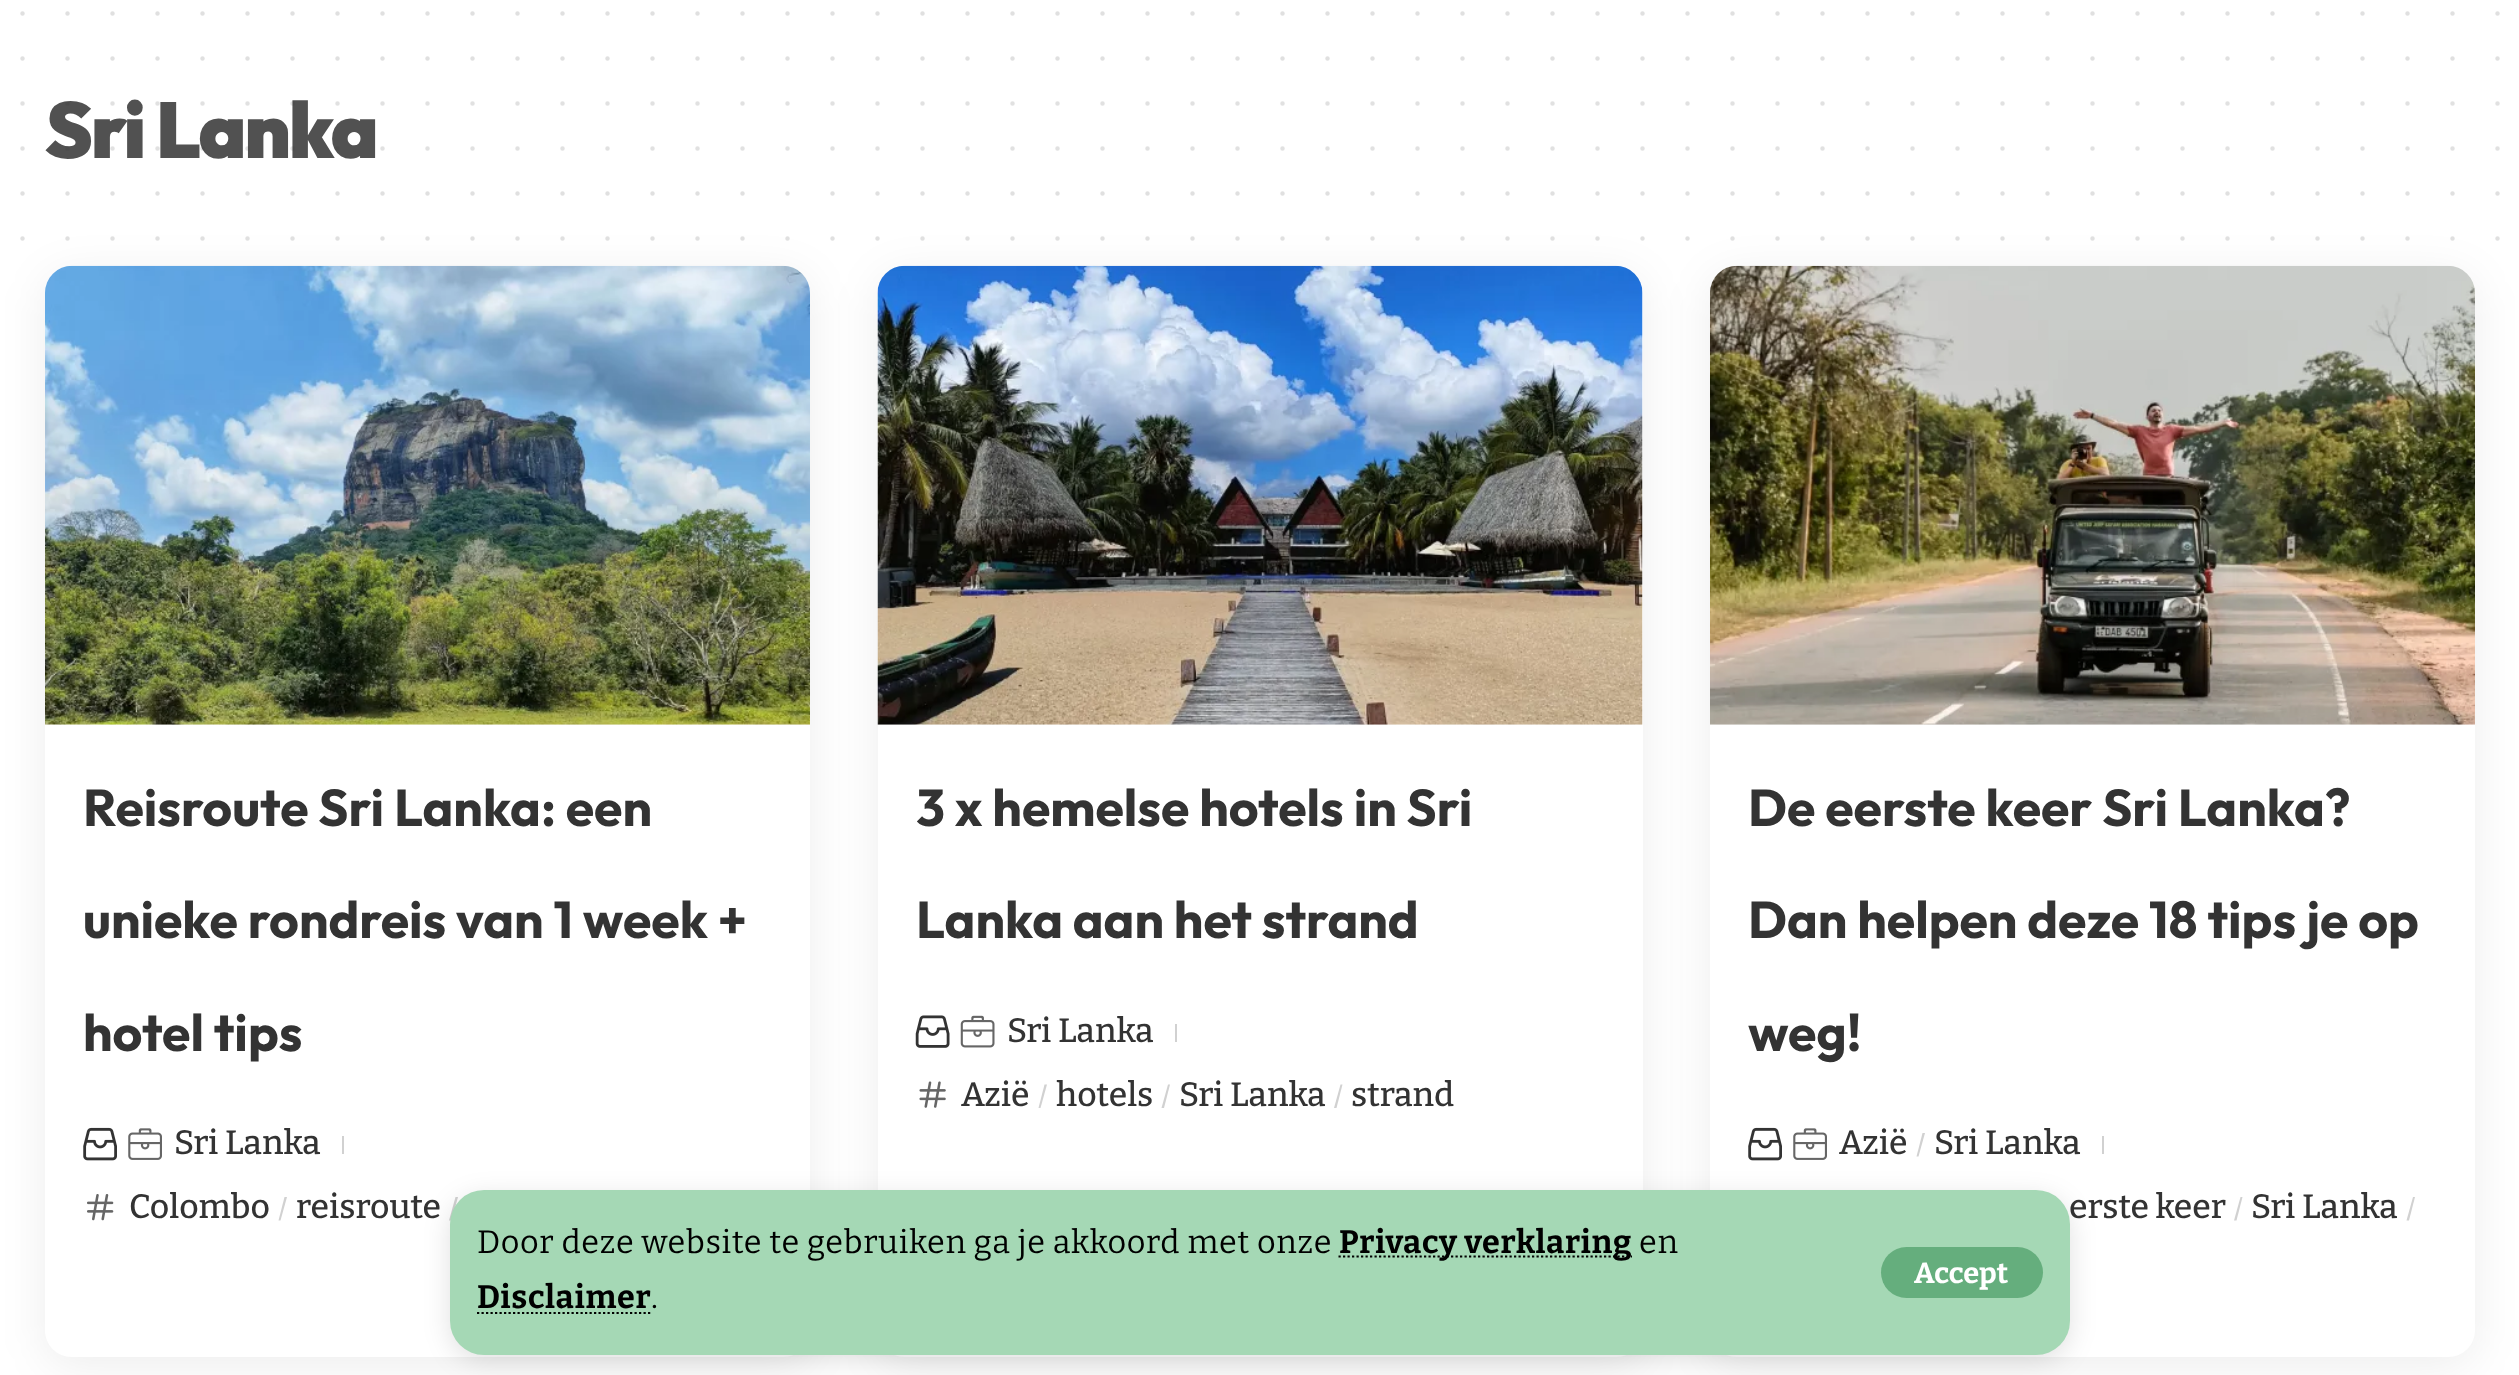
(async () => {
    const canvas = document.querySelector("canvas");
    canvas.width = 2519;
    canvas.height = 1375;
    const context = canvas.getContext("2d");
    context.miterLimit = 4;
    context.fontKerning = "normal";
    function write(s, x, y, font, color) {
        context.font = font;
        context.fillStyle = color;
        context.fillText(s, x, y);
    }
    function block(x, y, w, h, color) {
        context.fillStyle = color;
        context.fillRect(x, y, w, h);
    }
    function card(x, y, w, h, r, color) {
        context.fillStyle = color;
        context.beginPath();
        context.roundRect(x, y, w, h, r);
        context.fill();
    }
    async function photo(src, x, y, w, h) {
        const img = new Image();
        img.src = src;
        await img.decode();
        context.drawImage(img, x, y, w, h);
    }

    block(0, 0, 2519, 1375, "rgb(255, 255, 255)");
    context.letterSpacing = "-2.25px";
    write("Sri Lanka", 45, 158, "900 78.75px Outfit", "rgb(51, 51, 51)");
    block(45, 99, 331, 60, "rgba(252, 252, 252, 0.15)");
    context.beginPath();
    context.moveTo(22.5, 13.5);
    context.lineTo(2498, 13.5);
    context.strokeStyle = "rgb(224, 224, 224)";
    context.lineWidth = 4.5;
    context.lineCap = "round";
    context.setLineDash([0, 45]);
    context.stroke();
    context.beginPath();
    context.moveTo(22.5, 58.5);
    context.lineTo(2498, 58.5);
    context.stroke();
    context.beginPath();
    context.moveTo(22.5, 103.5);
    context.lineTo(2498, 103.5);
    context.strokeStyle = "rgba(51, 51, 51, 0.15)";
    context.stroke();
    context.beginPath();
    context.moveTo(22.5, 148.5);
    context.lineTo(2498, 148.5);
    context.stroke();
    context.beginPath();
    context.moveTo(22.5, 193.5);
    context.lineTo(2498, 193.5);
    context.strokeStyle = "rgb(224, 224, 224)";
    context.stroke();
    context.save();
    context.beginPath();
    context.moveTo(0, 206);
    context.lineTo(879, 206);
    context.lineTo(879, 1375);
    context.lineTo(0, 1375);
    context.closePath();
    context.moveTo(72, 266);
    context.lineTo(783, 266);
    context.bezierCurveTo(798, 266, 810, 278, 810, 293);
    context.lineTo(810, 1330);
    context.bezierCurveTo(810, 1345, 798, 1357, 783, 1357);
    context.lineTo(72, 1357);
    context.bezierCurveTo(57, 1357, 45, 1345, 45, 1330);
    context.lineTo(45, 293);
    context.bezierCurveTo(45, 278, 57, 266, 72, 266);
    context.closePath();
    context.clip("evenodd");
    context.fillStyle = "rgba(0, 0, 0, 0.07)";
    context.filter = "blur(22.5px)";
    context.beginPath();
    context.roundRect(45, 275, 765, 1091, 27);
    context.fill();
    context.filter = "none";
    context.restore();
    context.save();
    context.beginPath();
    context.moveTo(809, 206);
    context.lineTo(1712, 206);
    context.lineTo(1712, 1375);
    context.lineTo(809, 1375);
    context.closePath();
    context.moveTo(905, 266);
    context.lineTo(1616, 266);
    context.bezierCurveTo(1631, 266, 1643, 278, 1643, 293);
    context.lineTo(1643, 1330);
    context.bezierCurveTo(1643, 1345, 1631, 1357, 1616, 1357);
    context.lineTo(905, 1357);
    context.bezierCurveTo(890, 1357, 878, 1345, 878, 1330);
    context.lineTo(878, 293);
    context.bezierCurveTo(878, 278, 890, 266, 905, 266);
    context.closePath();
    context.clip("evenodd");
    context.fillStyle = "rgba(0, 0, 0, 0.07)";
    context.filter = "blur(22.5px)";
    context.beginPath();
    context.roundRect(878, 275, 765, 1091, 27);
    context.fill();
    context.filter = "none";
    context.restore();
    context.save();
    context.beginPath();
    context.moveTo(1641, 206);
    context.lineTo(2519, 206);
    context.lineTo(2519, 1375);
    context.lineTo(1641, 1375);
    context.closePath();
    context.moveTo(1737, 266);
    context.lineTo(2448, 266);
    context.bezierCurveTo(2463, 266, 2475, 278, 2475, 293);
    context.lineTo(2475, 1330);
    context.bezierCurveTo(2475, 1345, 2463, 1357, 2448, 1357);
    context.lineTo(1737, 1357);
    context.bezierCurveTo(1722, 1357, 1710, 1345, 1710, 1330);
    context.lineTo(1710, 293);
    context.bezierCurveTo(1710, 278, 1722, 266, 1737, 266);
    context.closePath();
    context.clip("evenodd");
    context.fillStyle = "rgba(0, 0, 0, 0.07)";
    context.filter = "blur(22.5px)";
    context.beginPath();
    context.roundRect(1710, 275, 765, 1091, 27);
    context.fill();
    context.filter = "none";
    context.restore();
    context.beginPath();
    context.moveTo(22.5, 238.5);
    context.lineTo(2498, 238.5);
    context.stroke();
    await photo("media/1.png", 45, 265, 765, 460);
    context.letterSpacing = "0px";
    write("Reisroute Sri Lanka: een", 83, 826, "bold 51.75px Outfit", "rgb(51, 51, 51)");
    write("unieke rondreis van 1 week +", 83, 938, "bold 51.75px Outfit", "rgb(51, 51, 51)");
    write("hotel tips", 83, 1051, "bold 51.75px Outfit", "rgb(51, 51, 51)");
    await photo("media/2.png", 83, 1127, 34, 34);
    await photo("media/3.png", 128, 1128, 34, 32);
    write("Sri Lanka", 174, 1154, "500 33.75px Bitter", "rgb(51, 51, 51)");
    block(342, 1136, 2, 18, "rgb(209, 209, 209)");
    await photo("media/4.png", 87, 1194, 27, 27);
    write("Colombo", 129, 1218, "500 33.75px Bitter", "rgb(51, 51, 51)");
    context.fillStyle = "rgb(209, 209, 209)";
    context.beginPath();
    context.moveTo(284.5, 1197);
    context.lineTo(287, 1197);
    context.lineTo(280.5, 1220.5);
    context.lineTo(278.5, 1220.5);
    context.closePath();
    context.fill();
    write("reisroute", 296, 1218, "500 33.75px Bitter", "rgb(51, 51, 51)");
    context.fillStyle = "rgb(209, 209, 209)";
    context.beginPath();
    context.moveTo(455.5, 1197);
    context.lineTo(458, 1197);
    context.lineTo(451.5, 1220.5);
    context.lineTo(449, 1220.5);
    context.closePath();
    context.fill();
    await photo("media/5.png", 877, 265, 766, 460);
    write("3 x hemelse hotels in Sri", 916, 826, "bold 51.75px Outfit", "rgb(51, 51, 51)");
    write("Lanka aan het strand", 916, 938, "bold 51.75px Outfit", "rgb(51, 51, 51)");
    await photo("media/6.png", 915, 1015, 35, 33);
    await photo("media/7.png", 960, 1015, 35, 33);
    write("Sri Lanka", 1007, 1042, "500 33.75px Bitter", "rgb(51, 51, 51)");
    block(1175, 1024, 2, 18, "rgb(209, 209, 209)");
    await photo("media/8.png", 919, 1081, 27, 27);
    write("Azië", 961, 1106, "500 33.75px Bitter", "rgb(51, 51, 51)");
    context.fillStyle = "rgb(209, 209, 209)";
    context.beginPath();
    context.moveTo(1044.5, 1084.5);
    context.lineTo(1047, 1084.5);
    context.lineTo(1040.5, 1108);
    context.lineTo(1038.5, 1108);
    context.closePath();
    context.fill();
    write("hotels", 1056, 1106, "500 33.75px Bitter", "rgb(51, 51, 51)");
    context.fillStyle = "rgb(209, 209, 209)";
    context.beginPath();
    context.moveTo(1168, 1084.5);
    context.lineTo(1170, 1084.5);
    context.lineTo(1164, 1108);
    context.lineTo(1161.5, 1108);
    context.closePath();
    context.fill();
    write("Sri Lanka", 1179, 1106, "500 33.75px Bitter", "rgb(51, 51, 51)");
    context.fillStyle = "rgb(209, 209, 209)";
    context.beginPath();
    context.moveTo(1340.5, 1084.5);
    context.lineTo(1342.5, 1084.5);
    context.lineTo(1336.5, 1108);
    context.lineTo(1334, 1108);
    context.closePath();
    context.fill();
    write("strand", 1351, 1106, "500 33.75px Bitter", "rgb(51, 51, 51)");
    await photo("media/9.png", 1710, 265, 765, 460);
    write("De eerste keer Sri Lanka?", 1748, 826, "bold 51.75px Outfit", "rgb(51, 51, 51)");
    write("Dan helpen deze 18 tips je op", 1748, 938, "bold 51.75px Outfit", "rgb(51, 51, 51)");
    write("weg!", 1748, 1051, "bold 51.75px Outfit", "rgb(51, 51, 51)");
    await photo("media/2.png", 1748, 1127, 34, 34);
    await photo("media/3.png", 1793, 1128, 34, 32);
    write("Azië", 1839, 1154, "500 33.75px Bitter", "rgb(51, 51, 51)");
    context.fillStyle = "rgb(209, 209, 209)";
    context.beginPath();
    context.moveTo(1922.5, 1133);
    context.lineTo(1925, 1133);
    context.lineTo(1918.5, 1156.5);
    context.lineTo(1916.5, 1156.5);
    context.closePath();
    context.fill();
    write("Sri Lanka", 1934, 1154, "500 33.75px Bitter", "rgb(51, 51, 51)");
    block(2102, 1136, 2, 18, "rgb(209, 209, 209)");
    write("erste keer", 2069, 1218, "500 33.75px Bitter", "rgb(51, 51, 51)");
    context.fillStyle = "rgb(209, 209, 209)";
    context.beginPath();
    context.moveTo(2240.5, 1197);
    context.lineTo(2242.5, 1197);
    context.lineTo(2236.5, 1220.5);
    context.lineTo(2234, 1220.5);
    context.closePath();
    context.fill();
    write("Sri Lanka", 2251, 1218, "500 33.75px Bitter", "rgb(51, 51, 51)");
    context.fillStyle = "rgb(209, 209, 209)";
    context.beginPath();
    context.moveTo(2413, 1197);
    context.lineTo(2415, 1197);
    context.lineTo(2409, 1220.5);
    context.lineTo(2406.5, 1220.5);
    context.closePath();
    context.fill();
    context.fillStyle = "rgba(0, 0, 0, 0.12)";
    context.filter = "blur(13.5px)";
    context.beginPath();
    context.roundRect(450, 1197, 1620, 164, 34);
    context.fill();
    context.filter = "none";
    card(450, 1190, 1620, 165, 34, "rgb(165, 216, 181)");
    context.letterSpacing = "0.68px";
    write("Door deze website te gebruiken ga je akkoord met onze", 477, 1253, "32.4px Bitter", "rgb(0, 0, 0)");
    context.beginPath();
    context.moveTo(1338.5, 1256.5);
    context.lineTo(1632, 1256.5);
    context.strokeStyle = "rgb(0, 0, 0)";
    context.lineWidth = 2.2;
    context.lineCap = "butt";
    context.setLineDash([2.25, 2.25]);
    context.stroke();
    write("Privacy verklaring", 1339, 1253, "bold 32.4px Bitter", "rgb(0, 0, 0)");
    write("en", 1639, 1253, "32.4px Bitter", "rgb(0, 0, 0)");
    write("Disclaimer", 477, 1308, "bold 32.4px Bitter", "rgb(0, 0, 0)");
    context.beginPath();
    context.moveTo(477, 1313);
    context.lineTo(651.5, 1313);
    context.stroke();
    write(".", 651, 1308, "32.4px Bitter", "rgb(0, 0, 0)");
    card(1881, 1247, 162, 51, 25.5, "rgb(101, 174, 125)");
    context.letterSpacing = "0px";
    write("Accept", 1914, 1283, "bold 29px Bitter", "rgb(255, 255, 255)");
})();
